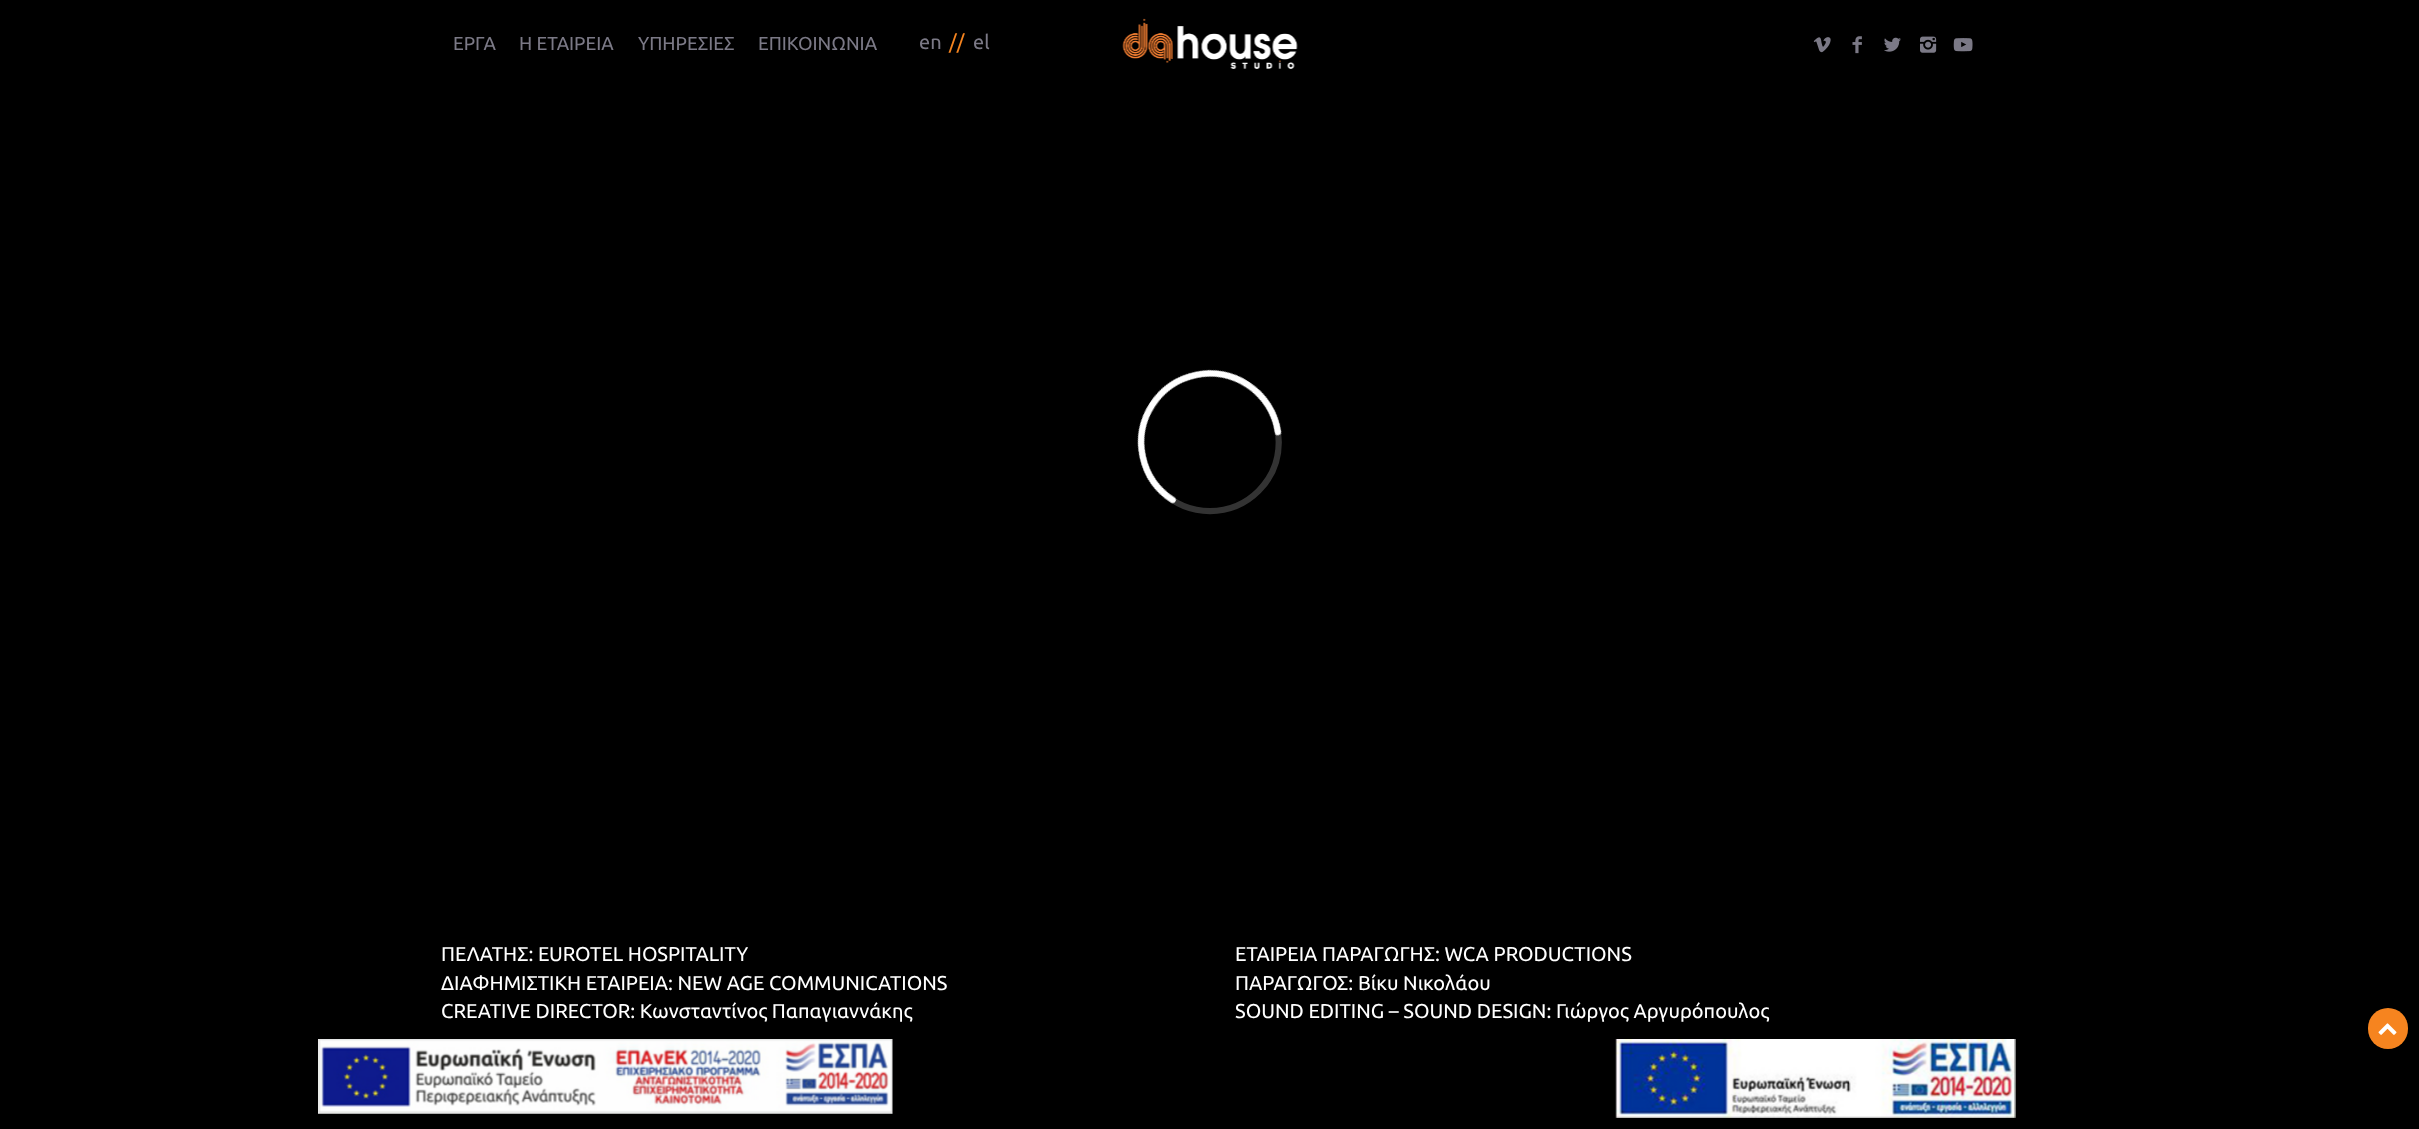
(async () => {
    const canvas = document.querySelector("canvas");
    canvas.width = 2419;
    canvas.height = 1129;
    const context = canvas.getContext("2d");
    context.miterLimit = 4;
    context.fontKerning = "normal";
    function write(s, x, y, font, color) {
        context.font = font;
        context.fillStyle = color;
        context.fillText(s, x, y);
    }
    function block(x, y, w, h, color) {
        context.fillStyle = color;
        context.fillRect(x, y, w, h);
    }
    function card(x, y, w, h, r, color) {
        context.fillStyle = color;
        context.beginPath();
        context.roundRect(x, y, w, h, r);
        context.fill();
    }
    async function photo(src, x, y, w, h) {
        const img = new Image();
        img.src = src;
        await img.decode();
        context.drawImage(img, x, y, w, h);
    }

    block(0, 0, 2419, 1129, "rgb(0, 0, 0)");
    write("ΕΡΓΑ", 453, 50, "18.75px Ubuntu", "rgb(123, 121, 134)");
    write("Η ΕΤΑΙΡΕΙΑ", 519, 50, "18.75px Ubuntu", "rgb(123, 121, 134)");
    write("ΥΠΗΡΕΣΙΕΣ", 638, 50, "18.75px Ubuntu", "rgb(123, 121, 134)");
    write("ΕΠΙΚΟΙΝΩΝΙΑ", 758, 50, "18.75px Ubuntu", "rgb(123, 121, 134)");
    write("en", 919, 49, "20px Ubuntu", "rgb(123, 121, 134)");
    write("//", 949, 49, "20px Ubuntu", "rgb(246, 132, 31)");
    write("el", 973, 49, "20px Ubuntu", "rgb(123, 121, 134)");
    await photo("media/1.png", 1122, 18, 176, 51);
    await photo("media/2.png", 1813, 37, 18, 16);
    await photo("media/3.png", 1852, 36, 10, 18);
    await photo("media/4.png", 1884, 37, 17, 15);
    await photo("media/5.png", 1920, 36, 17, 17);
    await photo("media/6.png", 1953, 38, 20, 14);
    await photo("media/7.png", 1137, 369, 145, 146);
    write("ΠΕΛΑΤΗΣ: EUROTEL HOSPITALITY", 441, 961, "20px Ubuntu", "rgb(255, 255, 255)");
    write("ΔΙΑΦΗΜΙΣΤΙΚΗ ΕΤΑΙΡΕΙΑ: NEW AGE COMMUNICATIONS", 441, 990, "20px Ubuntu", "rgb(255, 255, 255)");
    write("CREATIVE DIRECTOR: Κωνσταντίνος Παπαγιαννάκης", 441, 1018, "20px Ubuntu", "rgb(255, 255, 255)");
    write("ΕΤΑΙΡΕΙΑ ΠΑΡΑΓΩΓΗΣ: WCA PRODUCTIONS", 1235, 961, "20px Ubuntu", "rgb(255, 255, 255)");
    write("ΠΑΡΑΓΩΓΟΣ: Βίκυ Νικολάου", 1235, 990, "20px Ubuntu", "rgb(255, 255, 255)");
    write("SOUND EDITING – SOUND DESIGN: Γιώργος Αργυρόπουλος", 1235, 1018, "20px Ubuntu", "rgb(255, 255, 255)");
    await photo("media/8.png", 318, 1039, 575, 75);
    await photo("media/9.png", 1615, 1039, 401, 79);
    card(2368, 1008, 40, 41, 20, "rgb(246, 132, 31)");
    await photo("media/10.png", 2378, 1023, 19, 12);
})();
